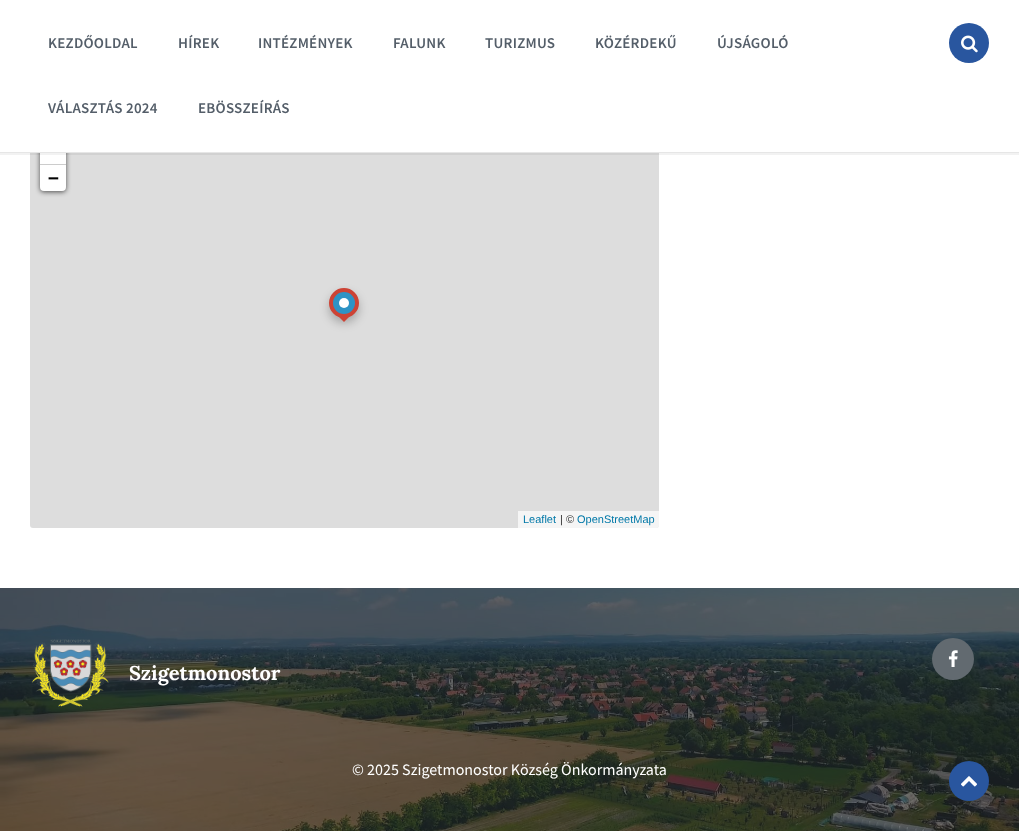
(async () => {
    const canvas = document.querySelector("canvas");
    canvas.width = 1019;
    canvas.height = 831;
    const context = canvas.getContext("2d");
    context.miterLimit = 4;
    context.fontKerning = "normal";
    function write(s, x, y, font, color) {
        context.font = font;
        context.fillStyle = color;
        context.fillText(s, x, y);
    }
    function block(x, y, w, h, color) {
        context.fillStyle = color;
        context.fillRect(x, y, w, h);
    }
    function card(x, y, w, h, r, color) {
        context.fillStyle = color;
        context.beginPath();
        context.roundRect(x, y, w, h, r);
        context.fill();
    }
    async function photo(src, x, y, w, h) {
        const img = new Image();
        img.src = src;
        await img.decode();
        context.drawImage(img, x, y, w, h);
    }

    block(0, 0, 1019, 831, "rgb(255, 255, 255)");
    card(30, 128, 629, 400, 3, "rgb(221, 221, 221)");
    context.fillStyle = "rgba(0, 0, 0, 0.65)";
    context.filter = "blur(2.5px)";
    context.beginPath();
    context.roundRect(40, 139, 26, 53, 4);
    context.fill();
    context.filter = "none";
    block(40, 153, 26, 11, "rgb(255, 255, 255)");
    context.strokeStyle = "rgba(0, 0, 0, 0.05)";
    context.lineWidth = 2;
    context.strokeRect(-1, -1, 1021, 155);
    block(30, 128, 629, 24, "rgb(255, 255, 255)");
    block(0, 152, 1019, 1, "rgb(230, 230, 230)");
    context.letterSpacing = "0.25px";
    write("KEZDŐOLDAL", 48, 48, "600 15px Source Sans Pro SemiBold", "rgb(84, 94, 105)");
    write("HÍREK", 178, 48, "600 15px Source Sans Pro SemiBold", "rgb(84, 94, 105)");
    write("INTÉZMÉNYEK", 258, 48, "600 15px Source Sans Pro SemiBold", "rgb(84, 94, 105)");
    write("FALUNK", 393, 48, "600 15px Source Sans Pro SemiBold", "rgb(84, 94, 105)");
    write("TURIZMUS", 485, 48, "600 15px Source Sans Pro SemiBold", "rgb(84, 94, 105)");
    write("KÖZÉRDEKŰ", 595, 48, "600 15px Source Sans Pro SemiBold", "rgb(84, 94, 105)");
    write("ÚJSÁGOLÓ", 717, 48, "600 15px Source Sans Pro SemiBold", "rgb(84, 94, 105)");
    write("VÁLASZTÁS 2024", 48, 113, "600 15px Source Sans Pro SemiBold", "rgb(84, 94, 105)");
    write("EBÖSSZEÍRÁS", 198, 113, "600 15px Source Sans Pro SemiBold", "rgb(84, 94, 105)");
    context.fillStyle = "rgb(41, 86, 159)";
    context.beginPath();
    context.arc(969, 43, 20, 0, Math.PI * 2);
    context.fill();
    await photo("media/1.png", 961, 35, 17, 18);
    block(40, 164, 26, 1, "rgb(204, 204, 204)");
    context.fillStyle = "rgb(255, 255, 255)";
    context.beginPath();
    context.roundRect(40, 165, 26, 26, [0, 0, 4, 4]);
    context.fill();
    context.letterSpacing = "0px";
    write("−", 48, 184, "bold 18px DejaVu Sans Mono", "rgb(0, 0, 0)");
    context.fillStyle = "rgba(255, 255, 255, 0.7)";
    context.beginPath();
    context.roundRect(518, 511, 141, 17, [0, 0, 3, 0]);
    context.fill();
    write("Leaflet", 523, 523, "11px Liberation Sans", "rgb(0, 120, 168)");
    write("| ©", 560, 523, "11px Liberation Sans", "rgb(51, 51, 51)");
    write("OpenStreetMap", 577, 523, "11px Liberation Sans", "rgb(0, 120, 168)");
    context.fillStyle = "rgba(0, 0, 0, 0.25)";
    context.filter = "blur(5px)";
    context.beginPath();
    context.roundRect(329, 293, 30, 30, 15);
    context.fill();
    context.filter = "none";
    context.fillStyle = "rgb(45, 147, 197)";
    context.beginPath();
    context.arc(344, 303, 13, 0, Math.PI * 2);
    context.fill();
    context.strokeStyle = "rgb(205, 67, 53)";
    context.lineWidth = 4;
    context.stroke();
    context.fillStyle = "rgb(255, 255, 255)";
    context.beginPath();
    context.arc(344, 303, 5, 0, Math.PI * 2);
    context.fill();
    context.fillStyle = "rgb(205, 67, 53)";
    context.beginPath();
    context.moveTo(338, 316);
    context.lineTo(350, 316);
    context.lineTo(344, 322);
    context.closePath();
    context.fill();
    await photo("media/2.png", 0, 588, 1019, 243);
    await photo("media/3.png", 31, 639, 78, 68);
    write("Szigetmonostor", 129, 680, "bold 20px Lora", "rgb(255, 255, 255)");
    context.fillStyle = "rgb(98, 106, 112)";
    context.beginPath();
    context.arc(953, 659, 21, 0, Math.PI * 2);
    context.fill();
    await photo("media/4.png", 948, 650, 10, 17);
    write("© 2025 Szigetmonostor Község Önkormányzata", 352, 775, "16px Source Sans Pro", "rgb(255, 255, 255)");
    context.fillStyle = "rgb(41, 86, 159)";
    context.beginPath();
    context.arc(969, 781, 20, 0, Math.PI * 2);
    context.fill();
    await photo("media/5.png", 961, 776, 16, 11);
})();
